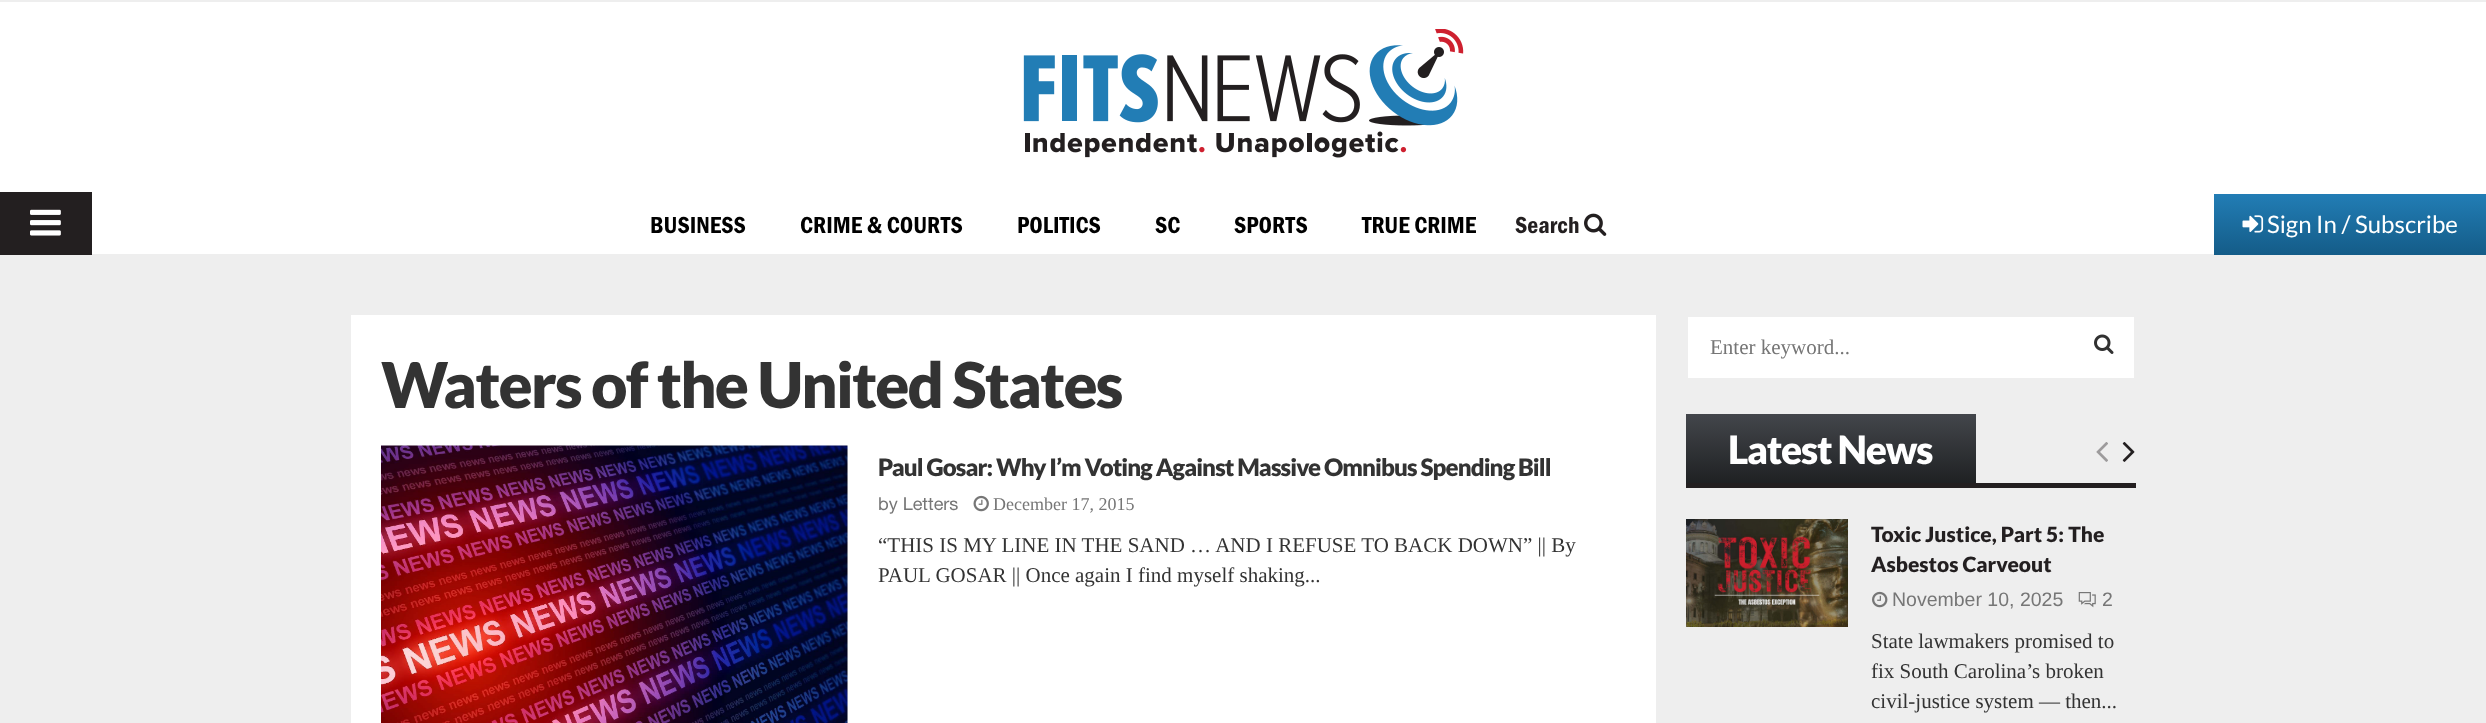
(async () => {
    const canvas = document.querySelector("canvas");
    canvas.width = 2486;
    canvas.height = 723;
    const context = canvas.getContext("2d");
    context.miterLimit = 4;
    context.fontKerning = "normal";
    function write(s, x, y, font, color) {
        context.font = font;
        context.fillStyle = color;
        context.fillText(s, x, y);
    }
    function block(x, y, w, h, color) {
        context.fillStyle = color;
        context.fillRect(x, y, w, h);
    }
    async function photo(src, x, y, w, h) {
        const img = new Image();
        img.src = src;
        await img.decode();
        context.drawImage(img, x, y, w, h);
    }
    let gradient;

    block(0, 0, 2486, 723, "rgb(238, 238, 238)");
    block(0, 2, 2486, 252, "rgb(255, 255, 255)");
    await photo("media/1.png", 1023, 29, 441, 129);
    block(1, 194, 89, 59, "rgb(35, 31, 32)");
    await photo("media/2.png", 30, 209, 31, 27);
    context.strokeStyle = "rgb(35, 31, 32)";
    context.lineWidth = 2;
    context.strokeRect(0, 193, 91, 61);
    write("BUSINESS", 650, 233, "24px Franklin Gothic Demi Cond", "rgb(0, 0, 0)");
    write("CRIME & COURTS", 800, 233, "24px Franklin Gothic Demi Cond", "rgb(0, 0, 0)");
    write("POLITICS", 1017, 233, "24px Franklin Gothic Demi Cond", "rgb(0, 0, 0)");
    write("SC", 1155, 233, "24px Franklin Gothic Demi Cond", "rgb(0, 0, 0)");
    write("SPORTS", 1234, 233, "24px Franklin Gothic Demi Cond", "rgb(0, 0, 0)");
    write("TRUE CRIME", 1362, 233, "24px Franklin Gothic Demi Cond", "rgb(0, 0, 0)");
    write("Search", 1515, 233, "24px Franklin Gothic Demi Cond", "rgb(35, 31, 32)");
    await photo("media/3.png", 1584, 213, 23, 23);
    gradient = context.createLinearGradient(2351, 194, 2351, 255);
    gradient.addColorStop(0, "rgb(34, 125, 181)");
    gradient.addColorStop(1, "rgb(20, 92, 136)");
    context.fillStyle = gradient;
    context.fillRect(2214, 194, 272, 61);
    await photo("media/4.png", 2242, 215, 22, 18);
    write("Sign In / Subscribe", 2267, 233, "24px Lato", "rgb(255, 255, 255)");
    block(351, 315, 1305, 408, "rgb(255, 255, 255)");
    context.letterSpacing = "-1.9px";
    write("Waters of the United States", 381, 408, "900 63px Lato", "rgb(51, 51, 51)");
    block(847, 446, 1, 277, "rgb(245, 245, 245)");
    await photo("media/5.png", 381, 445, 467, 278);
    context.letterSpacing = "-0.9px";
    write("Paul Gosar: Why I’m Voting Against Massive Omnibus Spending Bill", 878, 476, "900 24px Lato", "rgb(51, 51, 51)");
    context.letterSpacing = "0px";
    write("by Letters", 878, 510, "18px Helvetica Neue", "rgb(118, 118, 118)");
    await photo("media/6.png", 973, 495, 16, 17);
    write("December 17, 2015", 993, 510, "18px Liberation Serif", "rgb(118, 118, 118)");
    write("“THIS IS MY LINE IN THE SAND … AND I REFUSE TO BACK DOWN” || By", 878, 552, "21px Liberation Serif", "rgb(51, 51, 51)");
    write("PAUL GOSAR || Once again I find myself shaking...", 878, 582, "21px Liberation Serif", "rgb(51, 51, 51)");
    block(1688, 317, 446, 61, "rgb(255, 255, 255)");
    write("Enter keyword...", 1710, 354, "21px Liberation Serif", "rgb(118, 118, 118)");
    await photo("media/7.png", 2094, 334, 20, 20);
    gradient = context.createLinearGradient(1831, 414, 1831, 483);
    gradient.addColorStop(0, "rgb(67, 70, 75)");
    gradient.addColorStop(1, "rgb(31, 33, 35)");
    context.fillStyle = gradient;
    context.fillRect(1686, 414, 290, 69);
    context.letterSpacing = "-1.25px";
    write("Latest News", 1728, 464, "900 39px Lato", "rgb(255, 255, 255)");
    block(1686, 483, 450, 5, "rgb(35, 31, 32)");
    await photo("media/8.png", 2096, 442, 12, 20);
    await photo("media/9.png", 2122, 442, 13, 20);
    await photo("media/10.png", 1686, 519, 162, 108);
    context.letterSpacing = "0px";
    write("Toxic Justice, Part 5: The", 1871, 542, "900 21px Lato", "rgb(35, 31, 32)");
    write("Asbestos Carveout", 1871, 572, "900 21px Lato", "rgb(35, 31, 32)");
    await photo("media/11.png", 1872, 591, 16, 17);
    write("November 10, 2025", 1892, 606, "19.5px Liberation Sans", "rgb(118, 118, 118)");
    await photo("media/12.png", 2078, 592, 18, 16);
    write("2", 2102, 606, "19.5px Liberation Sans", "rgb(118, 118, 118)");
    write("State lawmakers promised to", 1871, 648, "21px Liberation Serif", "rgb(51, 51, 51)");
    write("fix South Carolina’s broken", 1871, 678, "21px Liberation Serif", "rgb(51, 51, 51)");
    write("civil-justice system — then...", 1871, 708, "21px Liberation Serif", "rgb(51, 51, 51)");
})();
